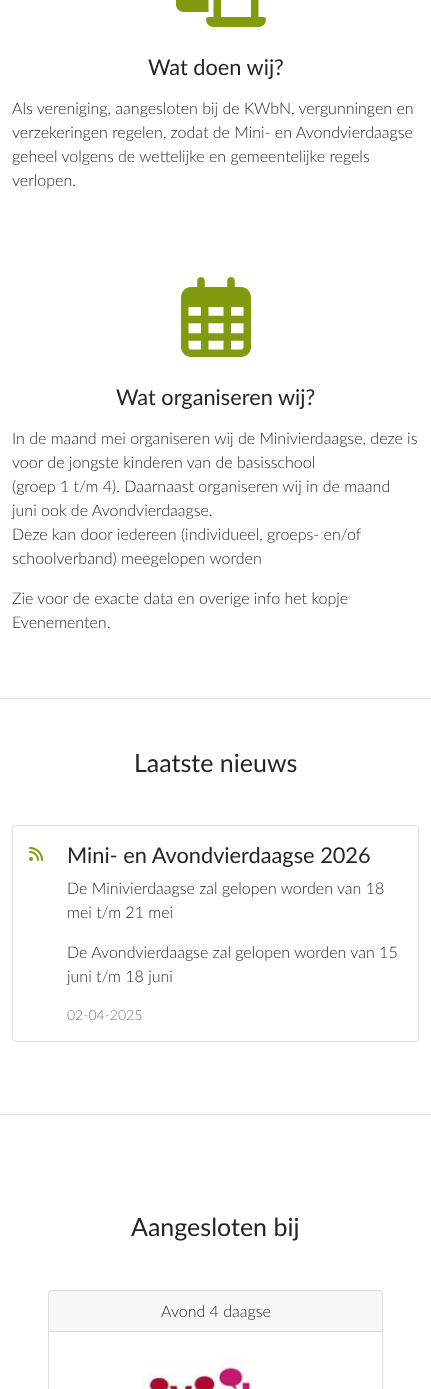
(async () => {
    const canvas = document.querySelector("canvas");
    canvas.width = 431;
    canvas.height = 1389;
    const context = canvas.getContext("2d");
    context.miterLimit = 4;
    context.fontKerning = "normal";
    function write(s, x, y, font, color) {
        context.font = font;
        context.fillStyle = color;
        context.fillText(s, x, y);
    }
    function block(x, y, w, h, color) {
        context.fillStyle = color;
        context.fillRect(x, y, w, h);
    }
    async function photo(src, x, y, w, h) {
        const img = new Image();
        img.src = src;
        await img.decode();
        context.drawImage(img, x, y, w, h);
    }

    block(0, 0, 431, 1389, "rgb(255, 255, 255)");
    block(0, 698, 431, 1, "rgb(222, 226, 230)");
    await photo("media/1.png", 176, 0, 90, 27);
    write("Wat doen wij?", 148, 75, "21.75px Lato", "rgb(33, 37, 41)");
    write("Als vereniging, aangesloten bij de KWbN, vergunningen en", 12, 114, "300 16px Lato", "rgb(33, 37, 41)");
    write("verzekeringen regelen, zodat de Mini- en Avondvierdaagse", 12, 138, "300 16px Lato", "rgb(33, 37, 41)");
    write("geheel volgens de wettelijke en gemeentelijke regels", 12, 162, "300 16px Lato", "rgb(33, 37, 41)");
    write("verlopen.", 12, 186, "300 16px Lato", "rgb(33, 37, 41)");
    await photo("media/2.png", 181, 277, 70, 80);
    write("Wat organiseren wij?", 116, 405, "21.75px Lato", "rgb(33, 37, 41)");
    write("In de maand mei organiseren wij de Minivierdaagse, deze is", 12, 444, "300 16px Lato", "rgb(33, 37, 41)");
    write("voor de jongste kinderen van de basisschool", 12, 468, "300 16px Lato", "rgb(33, 37, 41)");
    write("(groep 1 t/m 4). Daarnaast organiseren wij in de maand", 12, 492, "300 16px Lato", "rgb(33, 37, 41)");
    write("juni ook de Avondvierdaagse.", 12, 516, "300 16px Lato", "rgb(33, 37, 41)");
    write("Deze kan door iedereen (individueel, groeps- en/of", 12, 540, "300 16px Lato", "rgb(33, 37, 41)");
    write("schoolverband) meegelopen worden", 12, 564, "300 16px Lato", "rgb(33, 37, 41)");
    write("Zie voor de exacte data en overige info het kopje", 12, 604, "300 16px Lato", "rgb(33, 37, 41)");
    write("Evenementen.", 12, 628, "300 16px Lato", "rgb(33, 37, 41)");
    block(0, 1114, 431, 1, "rgb(222, 226, 230)");
    write("Laatste nieuws", 134, 772, "25px Lato", "rgb(33, 37, 41)");
    context.beginPath();
    context.roundRect(12.5, 825.5, 406, 216, 3.5);
    context.strokeStyle = "rgb(223, 223, 223)";
    context.stroke();
    await photo("media/3.png", 29, 847, 14, 14);
    write("Mini- en Avondvierdaagse 2026", 67, 863, "21.75px Lato", "rgb(33, 37, 41)");
    write("De Minivierdaagse zal gelopen worden van 18", 67, 894, "300 16px Lato", "rgb(33, 37, 41)");
    write("mei t/m 21 mei", 67, 918, "300 16px Lato", "rgb(33, 37, 41)");
    write("De Avondvierdaagse zal gelopen worden van 15", 67, 958, "300 16px Lato", "rgb(33, 37, 41)");
    write("juni t/m 18 juni", 67, 982, "300 16px Lato", "rgb(33, 37, 41)");
    write("02-04-2025", 67, 1020, "300 14px Lato", "rgb(108, 117, 125)");
    write("Aangesloten bij", 131, 1236, "25px Lato", "rgb(33, 37, 41)");
    context.beginPath();
    context.roundRect(48.5, 1290.5, 334, 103, 3.5);
    context.stroke();
    block(49, 1291, 333, 40, "rgba(0, 0, 0, 0.03)");
    block(49, 1331, 333, 1, "rgb(216, 216, 216)");
    write("Avond 4 daagse", 161, 1317, "300 16px Lato", "rgb(33, 37, 41)");
    await photo("media/4.png", 143, 1358, 110, 31);
})();
